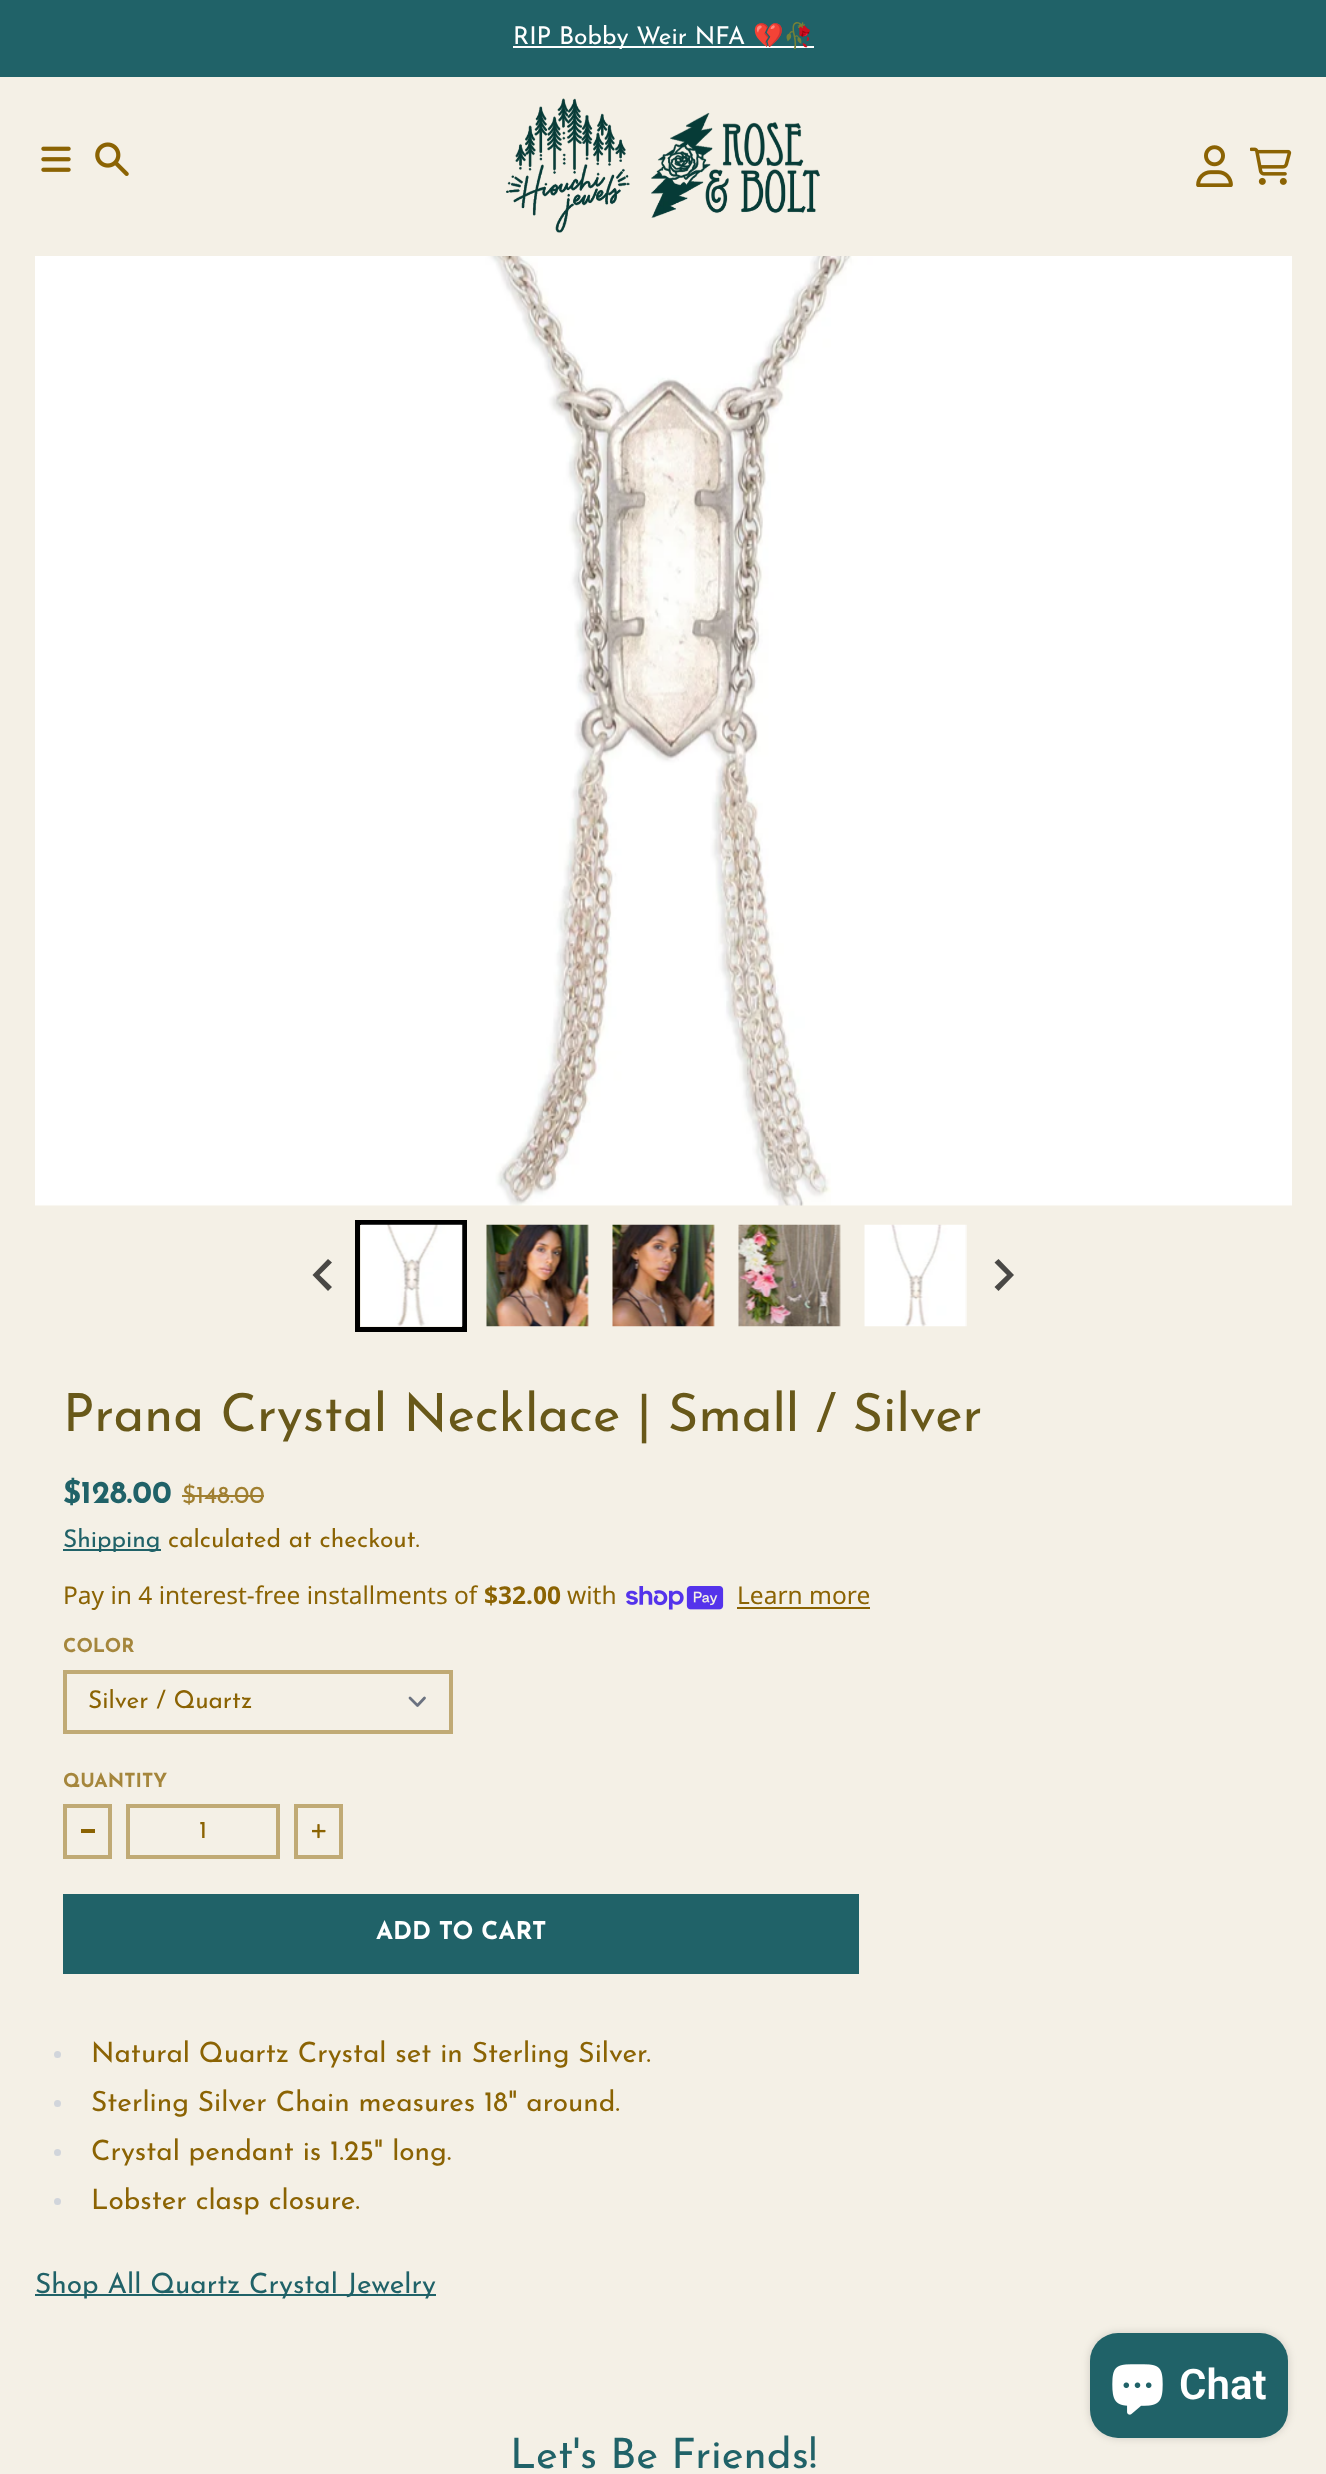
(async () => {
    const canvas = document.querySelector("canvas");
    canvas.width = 1326;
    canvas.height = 2474;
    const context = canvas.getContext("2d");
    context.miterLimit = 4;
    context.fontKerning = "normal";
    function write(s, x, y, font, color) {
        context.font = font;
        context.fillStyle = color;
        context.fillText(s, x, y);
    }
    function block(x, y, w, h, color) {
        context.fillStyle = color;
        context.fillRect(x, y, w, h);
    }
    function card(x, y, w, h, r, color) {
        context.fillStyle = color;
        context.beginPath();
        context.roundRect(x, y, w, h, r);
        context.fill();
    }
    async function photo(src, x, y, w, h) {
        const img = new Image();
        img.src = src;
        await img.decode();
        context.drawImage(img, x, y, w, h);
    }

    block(0, 0, 1326, 2474, "rgb(244, 240, 230)");
    block(0, 0, 1326, 77, "rgb(32, 98, 104)");
    block(513, 46, 301, 2, "rgb(255, 255, 255)");
    write("RIP Bobby Weir NFA", 513, 44, "24.5px Josefin Sans", "rgb(255, 255, 255)");
    write("💔🥀", 753, 44, "24.5px Noto Color Emoji", "rgb(255, 255, 255)");
    await photo("media/1.png", 41, 146, 30, 26);
    await photo("media/2.png", 95, 142, 34, 34);
    await photo("media/3.png", 506, 98, 314, 135);
    await photo("media/4.png", 1196, 145, 37, 42);
    await photo("media/5.png", 1250, 147, 42, 38);
    await photo("media/6.png", 35, 256, 1257, 950);
    context.strokeStyle = "rgb(0, 0, 0)";
    context.lineWidth = 5;
    context.strokeRect(357.5, 1222.5, 107, 107);
    await photo("media/7.png", 361, 1224, 102, 103);
    await photo("media/8.png", 486, 1224, 103, 103);
    await photo("media/9.png", 612, 1224, 103, 103);
    await photo("media/10.png", 738, 1224, 103, 103);
    await photo("media/11.png", 864, 1224, 103, 103);
    context.fillStyle = "rgb(73, 72, 69)";
    context.beginPath();
    context.moveTo(328, 1259);
    context.lineTo(332, 1262.5);
    context.lineTo(319.5, 1275);
    context.lineTo(332, 1287);
    context.lineTo(328, 1291);
    context.lineTo(312.5, 1275);
    context.closePath();
    context.fill();
    context.beginPath();
    context.moveTo(998.5, 1259);
    context.lineTo(994.5, 1262.5);
    context.lineTo(1007, 1275);
    context.lineTo(994.5, 1287);
    context.lineTo(998.5, 1291);
    context.lineTo(1014, 1275);
    context.closePath();
    context.fill();
    write("Prana Crystal Necklace | Small / Silver", 63, 1431, "52.5px Josefin Sans", "rgb(104, 88, 25)");
    write("$128.00", 63, 1503, "bold 31.5px Josefin Sans", "rgb(32, 98, 104)");
    write("$148.00", 182, 1503, "24.5px Josefin Sans", "rgb(160, 127, 48)");
    block(182, 1495, 82, 2, "rgb(160, 127, 48)");
    block(63, 1549, 98, 2, "rgb(32, 98, 104)");
    write("Shipping", 63, 1547, "24.5px Josefin Sans", "rgb(32, 98, 104)");
    write("calculated at checkout.", 168, 1547, "24.5px Josefin Sans", "rgb(139, 99, 3)");
    write("Pay in 4 interest-free installments of", 63, 1604, "24.5px Noto Sans", "rgb(139, 99, 3)");
    write("$32.00", 484, 1604, "bold 24.5px Noto Sans", "rgb(139, 99, 3)");
    write("with", 567, 1604, "24.5px Noto Sans", "rgb(139, 99, 3)");
    await photo("media/12.png", 626, 1586, 98, 24);
    write("Learn more", 737, 1604, "24.5px Noto Sans", "rgb(139, 99, 3)");
    block(737, 1607, 133, 2, "rgb(139, 99, 3)");
    write("COLOR", 63, 1652, "bold 19.25px Josefin Sans", "rgb(165, 134, 60)");
    context.beginPath();
    context.moveTo(410, 1698);
    context.lineTo(417.5, 1705.5);
    context.lineTo(424.5, 1698);
    context.strokeStyle = "rgb(107, 114, 128)";
    context.lineWidth = 2.8;
    context.lineCap = "round";
    context.lineJoin = "round";
    context.stroke();
    context.strokeStyle = "rgb(192, 170, 117)";
    context.lineWidth = 4;
    context.lineJoin = "miter";
    context.strokeRect(65, 1672, 386, 60);
    write("Silver / Quartz", 88, 1708, "24.5px Josefin Sans", "rgb(139, 99, 3)");
    write("QUANTITY", 63, 1787, "bold 19.25px Josefin Sans", "rgb(165, 134, 60)");
    context.strokeRect(65, 1806, 45, 51);
    block(81, 1829, 14, 4, "rgb(139, 99, 3)");
    context.strokeRect(128, 1806, 150, 51);
    write("1", 199, 1838, "24.5px Josefin Sans", "rgb(139, 99, 3)");
    context.strokeRect(296, 1806, 45, 51);
    await photo("media/13.png", 312, 1824, 14, 15);
    block(63, 1894, 796, 80, "rgb(32, 98, 104)");
    write("ADD TO CART", 376, 1939, "bold 24.5px Josefin Sans", "rgb(255, 255, 255)");
    context.fillStyle = "rgb(209, 213, 219)";
    context.beginPath();
    context.arc(57.5, 2054.5, 3.5, 0, Math.PI * 2);
    context.fill();
    write("Natural Quartz Crystal set in Sterling Silver.", 91, 2062, "28px Josefin Sans", "rgb(139, 99, 3)");
    context.fillStyle = "rgb(209, 213, 219)";
    context.beginPath();
    context.arc(57.5, 2103.5, 3.5, 0, Math.PI * 2);
    context.fill();
    write("Sterling Silver Chain measures 18\" around.", 91, 2111, "28px Josefin Sans", "rgb(139, 99, 3)");
    context.fillStyle = "rgb(209, 213, 219)";
    context.beginPath();
    context.arc(57.5, 2152.5, 3.5, 0, Math.PI * 2);
    context.fill();
    write("Crystal pendant is 1.25\" long.", 91, 2160, "28px Josefin Sans", "rgb(139, 99, 3)");
    context.fillStyle = "rgb(209, 213, 219)";
    context.beginPath();
    context.arc(57.5, 2201.5, 3.5, 0, Math.PI * 2);
    context.fill();
    write("Lobster clasp closure.", 91, 2209, "28px Josefin Sans", "rgb(139, 99, 3)");
    block(35, 2294, 401, 2, "rgb(32, 98, 104)");
    write("Shop All Quartz Crystal Jewelry", 35, 2293, "28px Josefin Sans", "rgb(32, 98, 104)");
    context.fillStyle = "rgba(0, 0, 0, 0.15)";
    context.filter = "blur(4.5px)";
    context.beginPath();
    context.roundRect(1090, 2333, 198, 105, 28);
    context.fill();
    context.filter = "none";
    card(1090, 2333, 198, 105, 28, "rgb(32, 98, 104)");
    await photo("media/14.png", 1112, 2364, 51, 51);
    write("Chat", 1179, 2399, "600 42px Roboto", "rgb(255, 255, 255)");
    write("Let's Be Friends!", 510, 2468, "42px Josefin Sans", "rgb(32, 98, 104)");
})();
